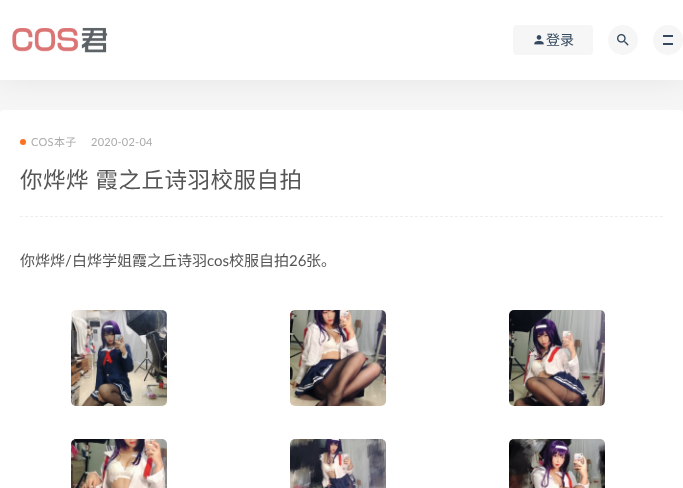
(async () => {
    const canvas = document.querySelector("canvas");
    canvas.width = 683;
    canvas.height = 488;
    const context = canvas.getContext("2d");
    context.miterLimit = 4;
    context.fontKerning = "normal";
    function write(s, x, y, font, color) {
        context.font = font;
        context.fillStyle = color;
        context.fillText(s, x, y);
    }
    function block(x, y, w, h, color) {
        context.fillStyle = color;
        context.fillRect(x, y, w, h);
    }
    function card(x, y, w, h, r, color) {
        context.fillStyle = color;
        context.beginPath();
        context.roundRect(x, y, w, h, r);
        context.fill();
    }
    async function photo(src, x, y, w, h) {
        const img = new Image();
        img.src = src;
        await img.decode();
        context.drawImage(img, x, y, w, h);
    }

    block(0, 0, 683, 488, "rgb(246, 246, 246)");
    card(0, 110, 683, 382, 4, "rgb(255, 255, 255)");
    context.fillStyle = "rgba(0, 0, 0, 0.07)";
    context.filter = "blur(15px)";
    context.beginPath();
    context.rect(0, 0, 683, 80);
    context.fill();
    context.filter = "none";
    block(0, 0, 683, 80, "rgb(255, 255, 255)");
    await photo("media/1.png", 12, 27, 96, 26);
    card(513, 25, 80, 30, 4, "rgb(246, 246, 246)");
    await photo("media/2.png", 534, 35, 10, 10);
    write("登录", 546, 45, "14px Noto Sans CJK SC", "rgb(52, 73, 94)");
    context.fillStyle = "rgb(246, 246, 246)";
    context.beginPath();
    context.arc(623, 40, 15, 0, Math.PI * 2);
    context.fill();
    await photo("media/3.png", 617, 34, 12, 12);
    context.beginPath();
    context.arc(668, 40, 15, 0, Math.PI * 2);
    context.fill();
    block(663, 35, 10, 2, "rgb(52, 73, 94)");
    block(663, 43, 10, 2, "rgb(52, 73, 94)");
    context.fillStyle = "rgb(253, 114, 31)";
    context.beginPath();
    context.arc(23, 142, 3, 0, Math.PI * 2);
    context.fill();
    context.letterSpacing = "0.25px";
    write("COS", 31, 146, "11px Lato", "rgb(170, 170, 170)");
    write("本子", 54, 146, "11px Noto Sans CJK SC", "rgb(170, 170, 170)");
    write("2020-02-04", 91, 146, "11px Lato", "rgb(170, 170, 170)");
    context.beginPath();
    context.moveTo(20, 216.5);
    context.lineTo(663, 216.5);
    context.strokeStyle = "rgb(238, 238, 238)";
    context.setLineDash([3, 2]);
    context.stroke();
    context.letterSpacing = "0.5px";
    context.wordSpacing = "1px";
    write("你烨烨 霞之丘诗羽校服自拍", 20, 188, "22.5px Noto Sans CJK SC", "rgb(85, 85, 85)");
    context.letterSpacing = "0px";
    context.wordSpacing = "0px";
    write("你烨烨", 20, 266, "15px Noto Sans CJK SC", "rgb(85, 85, 85)");
    write("/", 65, 266, "15px Lato", "rgb(85, 85, 85)");
    write("白烨学姐霞之丘诗羽", 72, 266, "15px Noto Sans CJK SC", "rgb(85, 85, 85)");
    write("cos", 207, 266, "15px Lato", "rgb(85, 85, 85)");
    write("校服自拍", 229, 266, "15px Noto Sans CJK SC", "rgb(85, 85, 85)");
    write("26", 289, 266, "15px Lato", "rgb(85, 85, 85)");
    write("张。", 306, 266, "15px Noto Sans CJK SC", "rgb(85, 85, 85)");
    await photo("media/4.png", 71, 310, 96, 96);
    await photo("media/5.png", 290, 310, 96, 96);
    await photo("media/6.png", 509, 310, 96, 96);
    await photo("media/7.png", 71, 439, 96, 49);
    await photo("media/8.png", 290, 439, 96, 49);
    await photo("media/9.png", 509, 439, 96, 49);
})();
